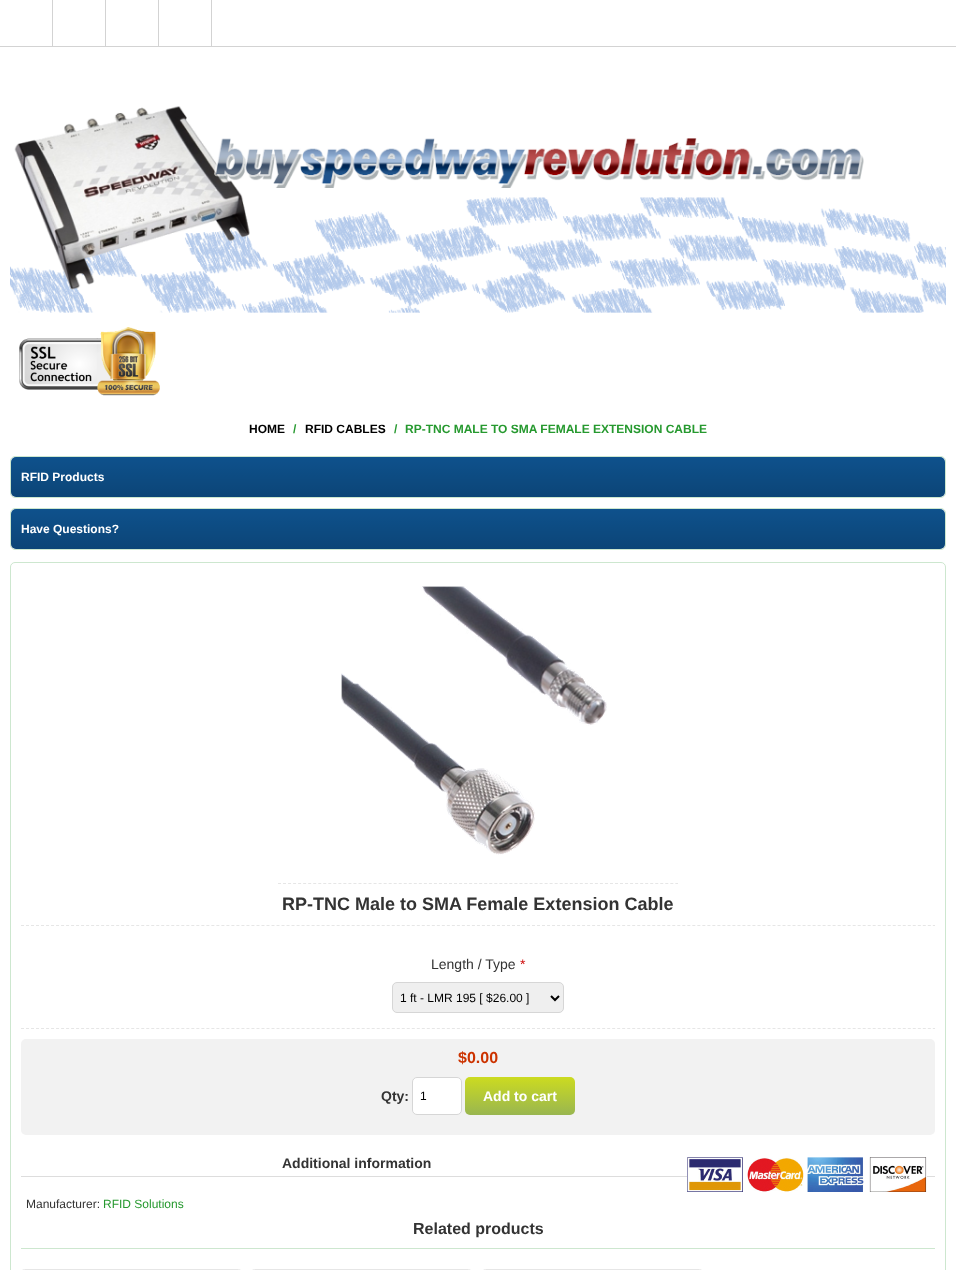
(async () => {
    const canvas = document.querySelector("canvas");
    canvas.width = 956;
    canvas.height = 1270;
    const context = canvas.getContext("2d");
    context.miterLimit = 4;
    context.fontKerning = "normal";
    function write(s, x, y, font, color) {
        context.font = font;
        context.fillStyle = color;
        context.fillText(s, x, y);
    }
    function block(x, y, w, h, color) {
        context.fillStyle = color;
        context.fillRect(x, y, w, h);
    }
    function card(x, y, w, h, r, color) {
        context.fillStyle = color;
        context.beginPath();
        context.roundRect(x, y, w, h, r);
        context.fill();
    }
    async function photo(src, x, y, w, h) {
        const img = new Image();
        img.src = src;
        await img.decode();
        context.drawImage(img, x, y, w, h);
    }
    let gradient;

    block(0, 0, 956, 1270, "rgb(255, 255, 255)");
    block(0, 46, 956, 1, "rgb(211, 211, 211)");
    block(52, 0, 1, 46, "rgb(211, 211, 211)");
    block(105, 0, 1, 46, "rgb(211, 211, 211)");
    block(158, 0, 1, 46, "rgb(211, 211, 211)");
    block(211, 0, 1, 46, "rgb(211, 211, 211)");
    await photo("media/1.png", 10, 106, 936, 207);
    await photo("media/2.png", 19, 327, 141, 69);
    write("HOME", 249, 433, "bold 12px Liberation Sans", "rgb(0, 0, 0)");
    write("/", 293, 433, "bold 12px Liberation Sans", "rgb(38, 153, 47)");
    write("RFID CABLES", 305, 433, "bold 12px Liberation Sans", "rgb(0, 0, 0)");
    write("/", 394, 433, "bold 12px Liberation Sans", "rgb(38, 153, 47)");
    write("RP-TNC MALE TO SMA FEMALE EXTENSION CABLE", 405, 433, "bold 12px Liberation Sans", "rgb(38, 153, 47)");
    context.beginPath();
    context.roundRect(10.5, 456.5, 935, 41, 4.5);
    context.strokeStyle = "rgb(205, 231, 207)";
    context.stroke();
    card(11, 457, 934, 40, 5, "rgb(14, 81, 140)");
    gradient = context.createLinearGradient(478, 457, 478, 497);
    gradient.addColorStop(0, "rgba(0, 0, 0, 0)");
    gradient.addColorStop(1, "rgba(0, 0, 0, 0.15)");
    context.fillStyle = gradient;
    context.beginPath();
    context.roundRect(11, 457, 934, 40, 5);
    context.fill();
    write("RFID Products", 21, 481, "bold 12px Liberation Sans", "rgb(255, 255, 255)");
    context.beginPath();
    context.roundRect(10.5, 508.5, 935, 41, 4.5);
    context.stroke();
    card(11, 509, 934, 40, 5, "rgb(14, 81, 140)");
    gradient = context.createLinearGradient(478, 509, 478, 549);
    gradient.addColorStop(0, "rgba(0, 0, 0, 0)");
    gradient.addColorStop(1, "rgba(0, 0, 0, 0.15)");
    context.fillStyle = gradient;
    context.beginPath();
    context.roundRect(11, 509, 934, 40, 5);
    context.fill();
    write("Have Questions?", 21, 533, "bold 12px Liberation Sans", "rgb(255, 255, 255)");
    context.beginPath();
    context.roundRect(10.5, 562.5, 935, 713, 4.5);
    context.stroke();
    context.beginPath();
    context.moveTo(278, 883.5);
    context.lineTo(678, 883.5);
    context.strokeStyle = "rgb(230, 230, 230)";
    context.setLineDash([3, 2.03]);
    context.stroke();
    await photo("media/3.png", 341, 586, 266, 269);
    context.beginPath();
    context.moveTo(21, 925.5);
    context.lineTo(935, 925.5);
    context.setLineDash([3, 2.01]);
    context.stroke();
    write("RP-TNC Male to SMA Female Extension Cable", 282, 910, "bold 18px Liberation Sans", "rgb(51, 51, 51)");
    context.beginPath();
    context.moveTo(21, 1028.5);
    context.lineTo(935, 1028.5);
    context.stroke();
    write("Length / Type", 431, 969, "14px Liberation Sans", "rgb(51, 51, 51)");
    write("*", 520, 969, "14px Liberation Sans", "rgb(204, 0, 0)");
    context.fillStyle = "rgb(239, 239, 239)";
    context.beginPath();
    context.roundRect(392.5, 982.5, 171, 30, 4.5);
    context.fill();
    context.strokeStyle = "rgb(214, 214, 214)";
    context.setLineDash([]);
    context.stroke();
    context.beginPath();
    context.moveTo(551, 996);
    context.lineTo(555, 1000);
    context.lineTo(559, 996);
    context.strokeStyle = "rgb(0, 0, 0)";
    context.lineWidth = 2;
    context.stroke();
    write("1 ft - LMR 195 [ $26.00 ]", 400, 1002, "12px Liberation Sans", "rgb(0, 0, 0)");
    card(21, 1039, 914, 96, 5, "rgb(242, 242, 242)");
    write("$0.00", 458, 1063, "bold 16px Liberation Sans", "rgb(204, 51, 0)");
    write("Qty:", 381, 1101, "bold 14px Liberation Sans", "rgb(51, 51, 51)");
    context.fillStyle = "rgb(255, 255, 255)";
    context.beginPath();
    context.roundRect(412.5, 1077.5, 49, 37, 4.5);
    context.fill();
    context.strokeStyle = "rgb(214, 214, 214)";
    context.lineWidth = 1;
    context.stroke();
    write("1", 420, 1100, "12px Liberation Sans", "rgb(0, 0, 0)");
    gradient = context.createLinearGradient(520, 1077, 520, 1115);
    gradient.addColorStop(0, "rgb(204, 219, 32)");
    gradient.addColorStop(1, "rgb(153, 182, 80)");
    context.fillStyle = gradient;
    context.beginPath();
    context.roundRect(465, 1077, 110, 38, 5);
    context.fill();
    write("Add to cart", 483, 1101, "bold 14px Liberation Sans", "rgb(255, 255, 255)");
    block(21, 1176, 914, 1, "rgb(221, 221, 221)");
    await photo("media/4.png", 687, 1157, 240, 35);
    write("Additional information", 282, 1168, "bold 14px Liberation Sans", "rgb(51, 51, 51)");
    write("Manufacturer:", 26, 1208, "12px Liberation Sans", "rgb(51, 51, 51)");
    write("RFID Solutions", 103, 1208, "12px Liberation Sans", "rgb(38, 153, 47)");
    block(21, 1248, 914, 1, "rgb(205, 231, 207)");
    write("Related products", 413, 1234, "bold 16px Liberation Sans", "rgb(51, 51, 51)");
    context.beginPath();
    context.roundRect(21.5, 1269.5, 220, 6, 4.5);
    context.strokeStyle = "rgb(230, 230, 230)";
    context.stroke();
    context.beginPath();
    context.roundRect(251.5, 1269.5, 220, 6, 4.5);
    context.stroke();
    context.beginPath();
    context.roundRect(482.5, 1269.5, 220, 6, 4.5);
    context.stroke();
})();
